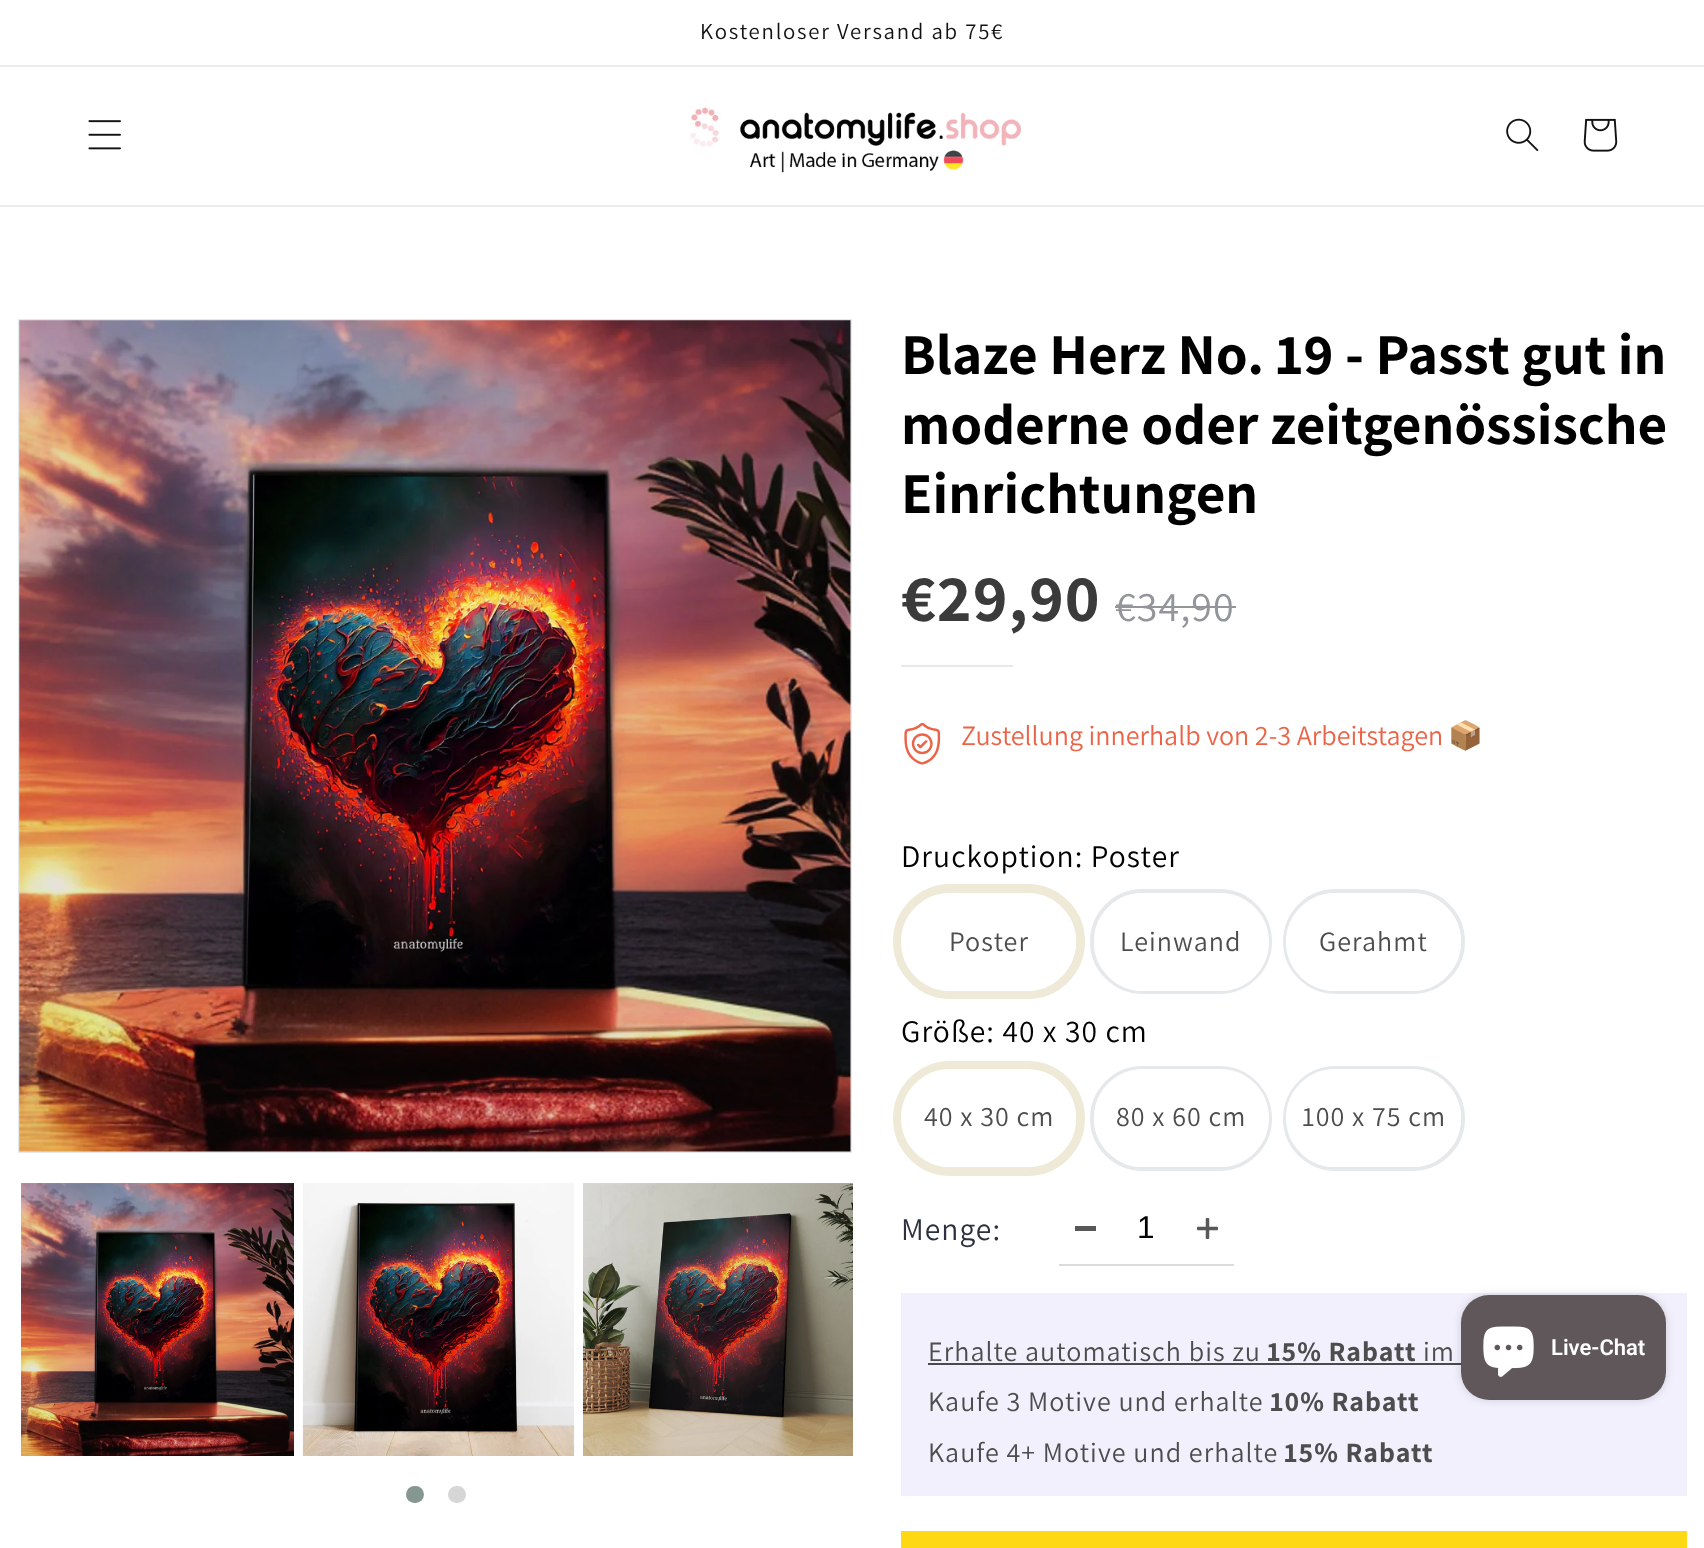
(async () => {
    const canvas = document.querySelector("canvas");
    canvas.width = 1704;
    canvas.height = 1548;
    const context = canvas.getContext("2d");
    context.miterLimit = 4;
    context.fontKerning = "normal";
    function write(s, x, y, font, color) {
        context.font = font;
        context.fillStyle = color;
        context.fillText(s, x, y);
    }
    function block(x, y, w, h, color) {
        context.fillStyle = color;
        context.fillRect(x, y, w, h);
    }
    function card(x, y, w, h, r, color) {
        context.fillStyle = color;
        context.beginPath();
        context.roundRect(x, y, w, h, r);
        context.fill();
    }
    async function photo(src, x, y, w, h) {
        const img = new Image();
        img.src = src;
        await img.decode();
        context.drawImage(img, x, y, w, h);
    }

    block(0, 0, 1704, 1548, "rgb(255, 255, 255)");
    block(0, 65, 1704, 2, "rgb(236, 236, 236)");
    context.letterSpacing = "1.75px";
    write("Kostenloser Versand ab 75€", 700, 39, "22.75px Assistant", "rgb(18, 18, 18)");
    block(0, 205, 1704, 2, "rgb(236, 236, 236)");
    await photo("media/1.png", 88, 120, 33, 30);
    await photo("media/2.png", 689, 106, 332, 67);
    await photo("media/3.png", 1506, 118, 33, 34);
    await photo("media/4.png", 1583, 118, 35, 34);
    context.strokeStyle = "rgb(230, 233, 235)";
    context.lineWidth = 2;
    context.strokeRect(19, 320, 832, 832);
    await photo("media/5.png", 19, 320, 832, 832);
    await photo("media/6.png", 21, 1183, 273, 273);
    await photo("media/7.png", 302, 1183, 273, 273);
    await photo("media/8.png", 583, 1183, 270, 273);
    card(406, 1486, 18, 17, 8.5, "rgb(134, 151, 145)");
    card(448, 1486, 18, 17, 8.5, "rgb(214, 214, 214)");
    context.letterSpacing = "0px";
    write("Blaze Herz No. 19 - Passt gut in", 901, 374, "bold 57.75px Assistant", "rgb(0, 0, 0)");
    write("moderne oder zeitgenössische", 901, 444, "bold 57.75px Assistant", "rgb(0, 0, 0)");
    write("Einrichtungen", 901, 513, "bold 57.75px Assistant", "rgb(0, 0, 0)");
    context.letterSpacing = "1.05px";
    write("€29,90", 901, 621, "bold 66.5px Assistant", "rgb(59, 59, 59)");
    write("€34,90", 1115, 621, "42px Assistant", "rgb(146, 149, 154)");
    block(1115, 606, 121, 2, "rgb(146, 149, 154)");
    block(901, 665, 112, 2, "rgb(230, 233, 235)");
    await photo("media/9.png", 904, 723, 37, 42);
    context.letterSpacing = "0px";
    write("Zustellung innerhalb von 2-3 Arbeitstagen", 961, 745, "28px Assistant", "rgb(236, 100, 72)");
    write("📦", 1448, 745, "28px Noto Color Emoji", "rgb(236, 100, 72)");
    context.letterSpacing = "1.05px";
    write("Druckoption: Poster", 901, 867, "31.5px Assistant", "rgb(0, 0, 0)");
    context.beginPath();
    context.roundRect(897.5, 888.5, 183, 106, 53);
    context.strokeStyle = "rgb(239, 234, 215)";
    context.lineWidth = 9;
    context.stroke();
    context.fillStyle = "rgb(255, 255, 255)";
    context.beginPath();
    context.roundRect(906.5, 898.5, 164, 87, 43.5);
    context.fill();
    context.strokeStyle = "rgb(255, 255, 255)";
    context.lineWidth = 11;
    context.stroke();
    write("Poster", 949, 951, "28px Assistant", "rgb(77, 77, 77)");
    context.beginPath();
    context.roundRect(1092, 891, 178, 101, 50.5);
    context.strokeStyle = "rgb(230, 233, 235)";
    context.lineWidth = 4;
    context.stroke();
    context.fillStyle = "rgb(255, 255, 255)";
    context.beginPath();
    context.roundRect(1099.5, 898.5, 164, 87, 43.5);
    context.fill();
    context.strokeStyle = "rgb(255, 255, 255)";
    context.lineWidth = 11;
    context.stroke();
    write("Leinwand", 1120, 951, "28px Assistant", "rgb(77, 77, 77)");
    context.beginPath();
    context.roundRect(1285, 891, 178, 101, 50.5);
    context.strokeStyle = "rgb(230, 233, 235)";
    context.lineWidth = 4;
    context.stroke();
    context.fillStyle = "rgb(255, 255, 255)";
    context.beginPath();
    context.roundRect(1291.5, 898.5, 164, 87, 43.5);
    context.fill();
    context.strokeStyle = "rgb(255, 255, 255)";
    context.lineWidth = 11;
    context.stroke();
    write("Gerahmt", 1319, 951, "28px Assistant", "rgb(77, 77, 77)");
    write("Größe: 40 x 30 cm", 901, 1042, "31.5px Assistant", "rgb(0, 0, 0)");
    context.beginPath();
    context.roundRect(897.5, 1065.5, 183, 106, 53);
    context.strokeStyle = "rgb(239, 234, 215)";
    context.lineWidth = 9;
    context.stroke();
    context.fillStyle = "rgb(255, 255, 255)";
    context.beginPath();
    context.roundRect(906.5, 1074.5, 164, 87, 43.5);
    context.fill();
    context.strokeStyle = "rgb(255, 255, 255)";
    context.lineWidth = 11;
    context.stroke();
    write("40 x 30 cm", 924, 1126, "28px Assistant", "rgb(77, 77, 77)");
    context.beginPath();
    context.roundRect(1092, 1068, 178, 101, 50.5);
    context.strokeStyle = "rgb(230, 233, 235)";
    context.lineWidth = 4;
    context.stroke();
    context.fillStyle = "rgb(255, 255, 255)";
    context.beginPath();
    context.roundRect(1099.5, 1074.5, 164, 87, 43.5);
    context.fill();
    context.strokeStyle = "rgb(255, 255, 255)";
    context.lineWidth = 11;
    context.stroke();
    write("80 x 60 cm", 1116, 1126, "28px Assistant", "rgb(77, 77, 77)");
    context.beginPath();
    context.roundRect(1285, 1068, 178, 101, 50.5);
    context.strokeStyle = "rgb(230, 233, 235)";
    context.lineWidth = 4;
    context.stroke();
    context.fillStyle = "rgb(255, 255, 255)";
    context.beginPath();
    context.roundRect(1291.5, 1074.5, 164, 87, 43.5);
    context.fill();
    context.strokeStyle = "rgb(255, 255, 255)";
    context.lineWidth = 11;
    context.stroke();
    write("100 x 75 cm", 1302, 1126, "28px Assistant", "rgb(77, 77, 77)");
    write("Menge:", 901, 1240, "31.5px Assistant", "rgb(45, 49, 63)");
    block(1059, 1264, 175, 2, "rgb(221, 220, 220)");
    block(1075, 1226, 21, 5, "rgb(88, 88, 88)");
    context.letterSpacing = "0px";
    write("1", 1137, 1238, "31.5px Liberation Sans", "rgb(0, 0, 0)");
    await photo("media/10.png", 1197, 1218, 21, 21);
    block(901, 1293, 786, 203, "rgb(242, 240, 253)");
    context.letterSpacing = "1.05px";
    write("Erhalte automatisch bis zu", 928, 1361, "28px Assistant", "rgb(77, 77, 77)");
    block(928, 1363, 533, 2, "rgb(74, 74, 77)");
    write("15% Rabatt", 1267, 1361, "bold 28px Assistant", "rgb(77, 77, 77)");
    write("im", 1423, 1361, "28px Assistant", "rgb(77, 77, 77)");
    write("Kaufe 3 Motive und erhalte", 928, 1411, "28px Assistant", "rgb(77, 77, 77)");
    write("10% Rabatt", 1270, 1411, "bold 28px Assistant", "rgb(77, 77, 77)");
    write("Kaufe 4+ Motive und erhalte", 928, 1462, "28px Assistant", "rgb(77, 77, 77)");
    write("15% Rabatt", 1284, 1462, "bold 28px Assistant", "rgb(77, 77, 77)");
    block(901, 1531, 786, 17, "rgb(255, 216, 20)");
    context.fillStyle = "rgba(0, 0, 0, 0.15)";
    context.filter = "blur(4.5px)";
    context.beginPath();
    context.roundRect(1461, 1295, 205, 105, 28);
    context.fill();
    context.filter = "none";
    card(1461, 1295, 205, 105, 28, "rgb(96, 87, 90)");
    await photo("media/11.png", 1483, 1326, 51, 51);
    context.letterSpacing = "0px";
    write("Live-Chat", 1551, 1355, "600 22px Roboto", "rgb(255, 255, 255)");
})();
